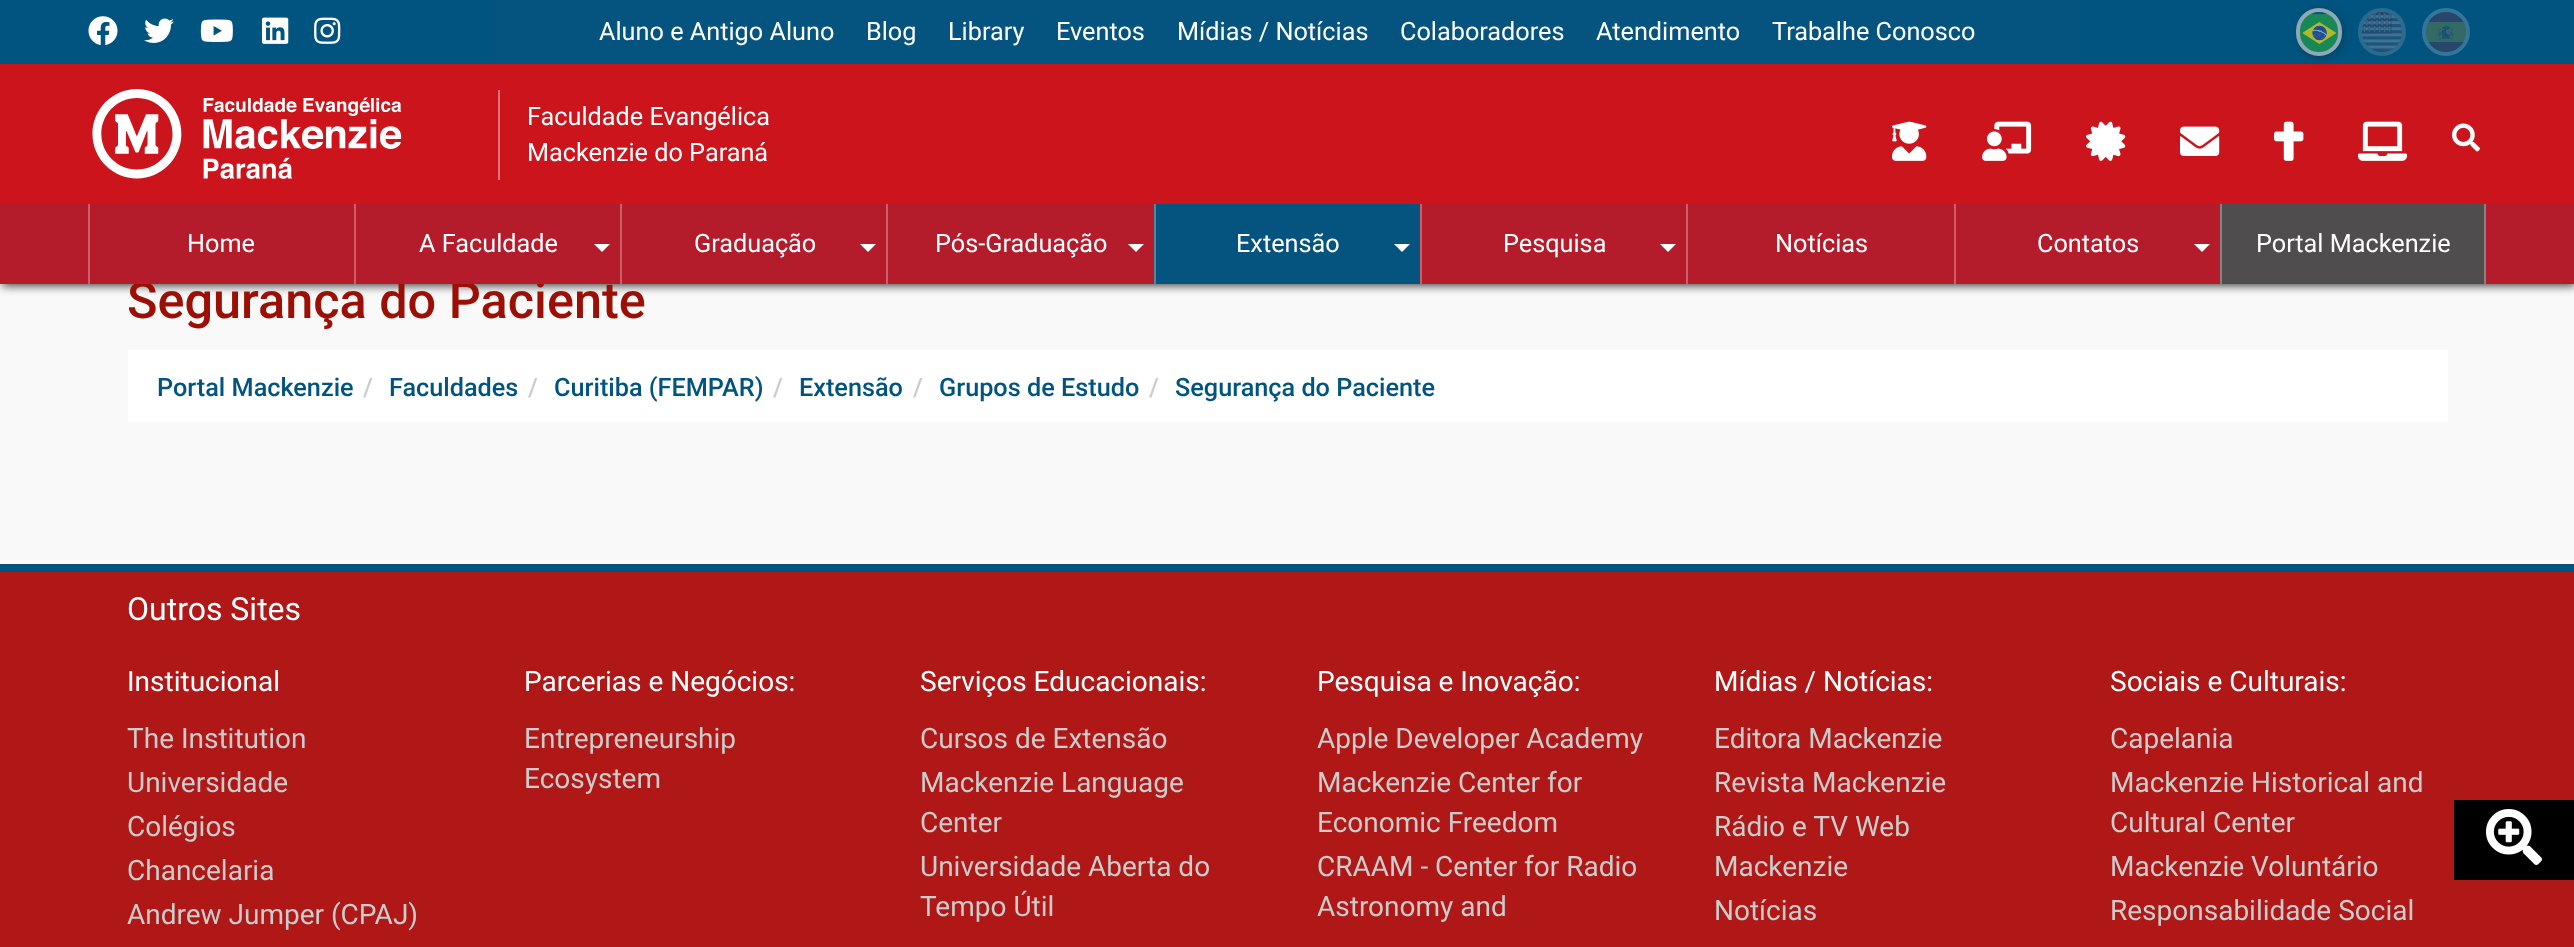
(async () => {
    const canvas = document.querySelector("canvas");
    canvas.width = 2574;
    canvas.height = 947;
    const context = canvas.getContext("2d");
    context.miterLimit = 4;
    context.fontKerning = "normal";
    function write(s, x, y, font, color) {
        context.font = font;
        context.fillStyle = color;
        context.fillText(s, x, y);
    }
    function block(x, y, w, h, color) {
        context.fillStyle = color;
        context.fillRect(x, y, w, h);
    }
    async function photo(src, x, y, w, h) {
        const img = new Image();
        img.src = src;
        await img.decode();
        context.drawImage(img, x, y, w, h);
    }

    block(0, 0, 2574, 947, "rgb(249, 249, 249)");
    context.fillStyle = "rgb(68, 68, 68)";
    context.filter = "blur(5px)";
    context.beginPath();
    context.rect(2, 2, 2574, 284);
    context.fill();
    context.filter = "none";
    block(0, 0, 2574, 64, "rgb(0, 84, 127)");
    await photo("media/1.png", 88, 16, 30, 29);
    await photo("media/2.png", 144, 18, 30, 25);
    await photo("media/3.png", 200, 19, 33, 23);
    await photo("media/4.png", 262, 17, 27, 27);
    await photo("media/5.png", 314, 17, 27, 27);
    block(494, 0, 1586, 64, "rgb(5, 84, 127)");
    write("Aluno e Antigo Aluno", 599, 40, "25.25px Roboto", "rgb(255, 255, 255)");
    write("Blog", 866, 40, "25.25px Roboto", "rgb(255, 255, 255)");
    write("Library", 948, 40, "25.25px Roboto", "rgb(255, 255, 255)");
    write("Eventos", 1056, 40, "25.25px Roboto", "rgb(255, 255, 255)");
    write("Mídias / Notícias", 1177, 40, "25.25px Roboto", "rgb(255, 255, 255)");
    write("Colaboradores", 1400, 40, "25.25px Roboto", "rgb(255, 255, 255)");
    write("Atendimento", 1596, 40, "25.25px Roboto", "rgb(255, 255, 255)");
    write("Trabalhe Conosco", 1772, 40, "25.25px Roboto", "rgb(255, 255, 255)");
    block(0, 64, 2574, 140, "rgb(204, 20, 29)");
    context.save();
    context.beginPath();
    context.moveTo(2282, 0);
    context.lineTo(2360, 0);
    context.lineTo(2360, 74);
    context.lineTo(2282, 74);
    context.closePath();
    context.moveTo(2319, 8);
    context.bezierCurveTo(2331.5, 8, 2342, 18.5, 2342, 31);
    context.lineTo(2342, 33);
    context.bezierCurveTo(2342, 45.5, 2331.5, 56, 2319, 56);
    context.bezierCurveTo(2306.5, 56, 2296, 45.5, 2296, 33);
    context.lineTo(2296, 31);
    context.bezierCurveTo(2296, 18.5, 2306.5, 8, 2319, 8);
    context.closePath();
    context.clip("evenodd");
    context.fillStyle = "rgba(1, 1, 1, 0.21)";
    context.filter = "blur(5px)";
    context.beginPath();
    context.roundRect(2298, 10, 46, 48, 23);
    context.fill();
    context.filter = "none";
    context.restore();
    await photo("media/6.png", 2300, 14, 38, 38);
    context.beginPath();
    context.roundRect(2298, 10, 42, 44, 21);
    context.strokeStyle = "rgb(143, 168, 181)";
    context.lineWidth = 4;
    context.stroke();
    await photo("media/7.png", 2362, 12, 40, 40);
    context.beginPath();
    context.arc(2382, 32, 22, 0, Math.PI * 2);
    context.strokeStyle = "rgb(41, 108, 142)";
    context.stroke();
    await photo("media/8.png", 2426, 12, 40, 40);
    context.beginPath();
    context.arc(2446, 32, 22, 0, Math.PI * 2);
    context.strokeStyle = "rgb(51, 118, 153)";
    context.stroke();
    await photo("media/9.png", 92, 89, 310, 90);
    block(498, 90, 2, 90, "rgb(224, 114, 119)");
    write("Faculdade Evangélica", 527, 125, "25.25px Roboto", "rgb(255, 255, 255)");
    write("Mackenzie do Paraná", 527, 161, "25.25px Roboto", "rgb(255, 255, 255)");
    await photo("media/10.png", 1892, 121, 35, 40);
    await photo("media/11.png", 1982, 121, 50, 40);
    await photo("media/12.png", 2086, 121, 40, 40);
    await photo("media/13.png", 2180, 126, 40, 30);
    await photo("media/14.png", 2274, 121, 30, 40);
    await photo("media/15.png", 2358, 121, 49, 40);
    await photo("media/16.png", 2452, 123, 28, 29);
    write("Segurança do Paciente", 127, 318, "500 50.4px Roboto", "rgb(156, 15, 5)");
    block(0, 204, 2574, 80, "rgb(180, 28, 44)");
    block(88, 204, 2, 80, "rgb(203, 96, 107)");
    write("Home", 187, 252, "25.25px Roboto", "rgb(255, 255, 255)");
    block(354, 204, 2, 80, "rgb(203, 96, 107)");
    write("A Faculdade", 419, 252, "25.25px Roboto", "rgb(255, 255, 255)");
    context.beginPath();
    context.moveTo(594, 244);
    context.lineTo(610, 244);
    context.lineTo(602, 252);
    context.closePath();
    context.fill();
    block(620, 204, 2, 80, "rgb(203, 96, 107)");
    write("Graduação", 694, 252, "25.25px Roboto", "rgb(255, 255, 255)");
    context.beginPath();
    context.moveTo(860, 244);
    context.lineTo(876, 244);
    context.lineTo(868, 252);
    context.closePath();
    context.fill();
    block(886, 204, 2, 80, "rgb(203, 96, 107)");
    write("Pós-Graduação", 935, 252, "25.25px Roboto", "rgb(255, 255, 255)");
    context.beginPath();
    context.moveTo(1128, 244);
    context.lineTo(1144, 244);
    context.lineTo(1136, 252);
    context.closePath();
    context.fill();
    block(1156, 204, 264, 80, "rgb(5, 84, 127)");
    block(1154, 204, 2, 80, "rgb(80, 135, 165)");
    write("Extensão", 1236, 252, "25.25px Roboto", "rgb(255, 255, 255)");
    context.beginPath();
    context.moveTo(1394, 244);
    context.lineTo(1410, 244);
    context.lineTo(1402, 252);
    context.closePath();
    context.fill();
    block(1420, 204, 2, 80, "rgb(203, 96, 107)");
    write("Pesquisa", 1503, 252, "25.25px Roboto", "rgb(255, 255, 255)");
    context.beginPath();
    context.moveTo(1660, 244);
    context.lineTo(1676, 244);
    context.lineTo(1668, 252);
    context.closePath();
    context.fill();
    block(1686, 204, 2, 80, "rgb(203, 96, 107)");
    write("Notícias", 1775, 252, "25.25px Roboto", "rgb(255, 255, 255)");
    block(1954, 204, 2, 80, "rgb(203, 96, 107)");
    write("Contatos", 2037, 252, "25.25px Roboto", "rgb(255, 255, 255)");
    context.beginPath();
    context.moveTo(2194, 244);
    context.lineTo(2210, 244);
    context.lineTo(2202, 252);
    context.closePath();
    context.fill();
    block(2222, 204, 262, 80, "rgb(79, 77, 77)");
    block(2484, 204, 2, 80, "rgb(132, 130, 130)");
    block(2220, 204, 2, 80, "rgb(132, 130, 130)");
    write("Portal Mackenzie", 2256, 252, "25.25px Roboto", "rgb(255, 255, 255)");
    block(128, 350, 2320, 72, "rgb(255, 255, 255)");
    write("Portal Mackenzie", 157, 396, "500 25.25px Roboto", "rgb(0, 84, 127)");
    write("/", 363, 396, "500 25.25px Roboto", "rgb(204, 204, 204)");
    write("Faculdades", 389, 396, "500 25.25px Roboto", "rgb(0, 84, 127)");
    write("/", 528, 396, "500 25.25px Roboto", "rgb(204, 204, 204)");
    write("Curitiba (FEMPAR)", 554, 396, "500 25.25px Roboto", "rgb(0, 84, 127)");
    write("/", 773, 396, "500 25.25px Roboto", "rgb(204, 204, 204)");
    write("Extensão", 799, 396, "500 25.25px Roboto", "rgb(0, 84, 127)");
    write("/", 913, 396, "500 25.25px Roboto", "rgb(204, 204, 204)");
    write("Grupos de Estudo", 939, 396, "500 25.25px Roboto", "rgb(0, 84, 127)");
    write("/", 1149, 396, "500 25.25px Roboto", "rgb(204, 204, 204)");
    write("Segurança do Paciente", 1175, 396, "500 25.25px Roboto", "rgb(0, 84, 127)");
    block(0, 572, 2574, 375, "rgb(175, 24, 22)");
    block(0, 564, 2574, 8, "rgb(0, 84, 127)");
    write("Outros Sites", 127, 620, "32px Roboto", "rgb(255, 255, 255)");
    write("Institucional", 127, 691, "28px Roboto", "rgb(255, 255, 255)");
    write("The Institution", 127, 748, "28px Roboto", "rgb(204, 204, 204)");
    write("Universidade", 127, 792, "28px Roboto", "rgb(204, 204, 204)");
    write("Colégios", 127, 836, "28px Roboto", "rgb(204, 204, 204)");
    write("Chancelaria", 127, 880, "28px Roboto", "rgb(204, 204, 204)");
    write("Andrew Jumper (CPAJ)", 127, 924, "28px Roboto", "rgb(204, 204, 204)");
    write("Parcerias e Negócios:", 524, 691, "28px Roboto", "rgb(255, 255, 255)");
    write("Entrepreneurship", 524, 748, "28px Roboto", "rgb(204, 204, 204)");
    write("Ecosystem", 524, 788, "28px Roboto", "rgb(204, 204, 204)");
    write("Serviços Educacionais:", 920, 691, "28px Roboto", "rgb(255, 255, 255)");
    write("Cursos de Extensão", 920, 748, "28px Roboto", "rgb(204, 204, 204)");
    write("Mackenzie Language", 920, 792, "28px Roboto", "rgb(204, 204, 204)");
    write("Center", 920, 832, "28px Roboto", "rgb(204, 204, 204)");
    write("Universidade Aberta do", 920, 876, "28px Roboto", "rgb(204, 204, 204)");
    write("Tempo Útil", 920, 916, "28px Roboto", "rgb(204, 204, 204)");
    write("Pesquisa e Inovação:", 1317, 691, "28px Roboto", "rgb(255, 255, 255)");
    write("Apple Developer Academy", 1317, 748, "28px Roboto", "rgb(204, 204, 204)");
    write("Mackenzie Center for", 1317, 792, "28px Roboto", "rgb(204, 204, 204)");
    write("Economic Freedom", 1317, 832, "28px Roboto", "rgb(204, 204, 204)");
    write("CRAAM - Center for Radio", 1317, 876, "28px Roboto", "rgb(204, 204, 204)");
    write("Astronomy and", 1317, 916, "28px Roboto", "rgb(204, 204, 204)");
    write("Mídias / Notícias:", 1714, 691, "28px Roboto", "rgb(255, 255, 255)");
    write("Editora Mackenzie", 1714, 748, "28px Roboto", "rgb(204, 204, 204)");
    write("Revista Mackenzie", 1714, 792, "28px Roboto", "rgb(204, 204, 204)");
    write("Rádio e TV Web", 1714, 836, "28px Roboto", "rgb(204, 204, 204)");
    write("Mackenzie", 1714, 876, "28px Roboto", "rgb(204, 204, 204)");
    write("Notícias", 1714, 920, "28px Roboto", "rgb(204, 204, 204)");
    write("Sociais e Culturais:", 2110, 691, "28px Roboto", "rgb(255, 255, 255)");
    write("Capelania", 2110, 748, "28px Roboto", "rgb(204, 204, 204)");
    write("Mackenzie Historical and", 2110, 792, "28px Roboto", "rgb(204, 204, 204)");
    write("Cultural Center", 2110, 832, "28px Roboto", "rgb(204, 204, 204)");
    write("Mackenzie Voluntário", 2110, 876, "28px Roboto", "rgb(204, 204, 204)");
    write("Responsabilidade Social", 2110, 920, "28px Roboto", "rgb(204, 204, 204)");
    block(2454, 800, 120, 80, "rgb(0, 0, 0)");
    await photo("media/17.png", 2486, 809, 56, 56);
})();
